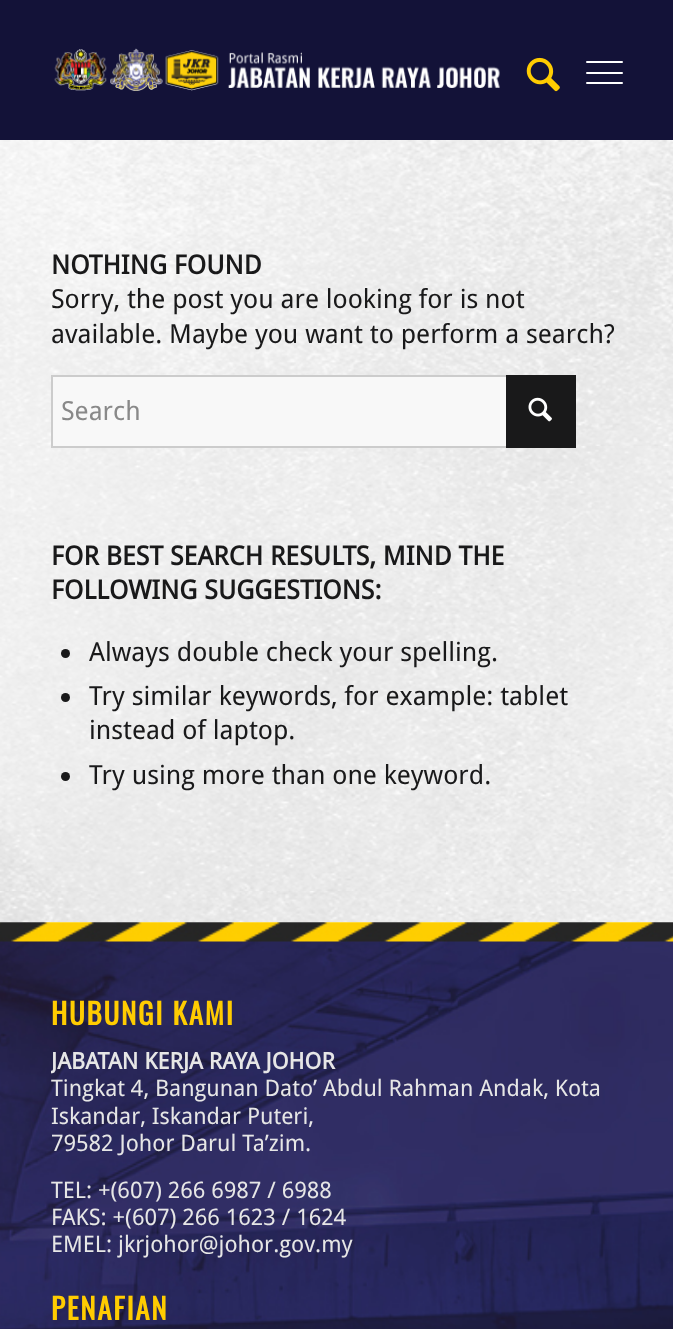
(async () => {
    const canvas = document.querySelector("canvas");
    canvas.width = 673;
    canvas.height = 1329;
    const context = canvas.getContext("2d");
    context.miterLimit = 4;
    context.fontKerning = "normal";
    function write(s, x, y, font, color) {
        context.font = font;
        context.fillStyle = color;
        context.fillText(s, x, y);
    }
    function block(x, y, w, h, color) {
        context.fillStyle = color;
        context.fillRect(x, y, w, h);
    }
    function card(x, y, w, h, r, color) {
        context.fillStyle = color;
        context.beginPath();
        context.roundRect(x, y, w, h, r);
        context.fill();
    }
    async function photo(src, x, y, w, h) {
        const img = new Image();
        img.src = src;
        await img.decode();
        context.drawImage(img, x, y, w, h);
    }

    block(0, 0, 673, 1329, "rgb(255, 255, 255)");
    block(0, 0, 673, 140, "rgb(19, 18, 56)");
    await photo("media/1.png", 54, 48, 446, 43);
    await photo("media/2.png", 526, 57, 34, 35);
    card(586, 72, 37, 2, 1, "rgb(255, 255, 255)");
    card(586, 61, 37, 2, 1, "rgb(255, 255, 255)");
    card(586, 82, 37, 2, 1, "rgb(255, 255, 255)");
    await photo("media/3.png", 0, 140, 673, 782);
    write("NOTHING FOUND", 51, 274, "bold 26.25px Droid Sans", "rgb(25, 25, 26)");
    write("Sorry, the post you are looking for is not", 51, 308, "26.25px Droid Sans", "rgb(25, 25, 26)");
    write("available. Maybe you want to perform a search?", 51, 343, "26.25px Droid Sans", "rgb(25, 25, 26)");
    block(53, 377, 453, 69, "rgb(248, 248, 248)");
    context.strokeStyle = "rgb(204, 204, 204)";
    context.lineWidth = 2;
    context.strokeRect(52, 376, 523, 71);
    write("Search", 61, 420, "26.25px Droid Sans", "rgb(137, 137, 137)");
    block(506, 375, 70, 73, "rgb(25, 25, 26)");
    await photo("media/4.png", 528, 397, 24, 25);
    write("FOR BEST SEARCH RESULTS, MIND THE", 51, 565, "bold 26.25px Droid Sans", "rgb(25, 25, 26)");
    write("FOLLOWING SUGGESTIONS:", 51, 599, "bold 26.25px Droid Sans", "rgb(25, 25, 26)");
    context.beginPath();
    context.arc(65.5, 653.5, 4.5, 0, Math.PI * 2);
    context.fill();
    write("Always double check your spelling.", 89, 661, "26.25px Droid Sans", "rgb(25, 25, 26)");
    context.beginPath();
    context.arc(65.5, 697.5, 4.5, 0, Math.PI * 2);
    context.fill();
    write("Try similar keywords, for example: tablet", 89, 705, "26.25px Droid Sans", "rgb(25, 25, 26)");
    write("instead of laptop.", 89, 739, "26.25px Droid Sans", "rgb(25, 25, 26)");
    context.beginPath();
    context.arc(65.5, 776.5, 4.5, 0, Math.PI * 2);
    context.fill();
    write("Try using more than one keyword.", 89, 784, "26.25px Droid Sans", "rgb(25, 25, 26)");
    await photo("media/5.png", 0, 922, 673, 407);
    context.letterSpacing = "1.75px";
    write("HUBUNGI KAMI", 51, 1025, "bold 29px Oswald", "rgb(255, 204, 1)");
    context.save();
    context.beginPath();
    context.rect(51, 984, 572, 294);
    context.clip();
    context.letterSpacing = "0px";
    write("JABATAN KERJA RAYA JOHOR", 51, 1069, "bold 22.75px Droid Sans", "rgb(230, 230, 230)");
    write("Tingkat 4, Bangunan Dato’ Abdul Rahman Andak, Kota", 51, 1096, "22.75px Droid Sans", "rgb(230, 230, 230)");
    context.restore();
    context.letterSpacing = "0px";
    write("Iskandar, Iskandar Puteri,", 51, 1124, "22.75px Droid Sans", "rgb(230, 230, 230)");
    write("79582 Johor Darul Ta’zim.", 51, 1151, "22.75px Droid Sans", "rgb(230, 230, 230)");
    context.save();
    context.beginPath();
    context.rect(51, 984, 572, 294);
    context.clip();
    write("TEL: +(607) 266 6987 / 6988", 51, 1198, "22.75px Droid Sans", "rgb(230, 230, 230)");
    context.restore();
    write("FAKS: +(607) 266 1623 / 1624", 51, 1225, "22.75px Droid Sans", "rgb(230, 230, 230)");
    write("EMEL: jkrjohor@johor.gov.my", 51, 1252, "22.75px Droid Sans", "rgb(230, 230, 230)");
    context.letterSpacing = "1.75px";
    write("PENAFIAN", 51, 1320, "bold 29px Oswald", "rgb(255, 204, 1)");
})();
